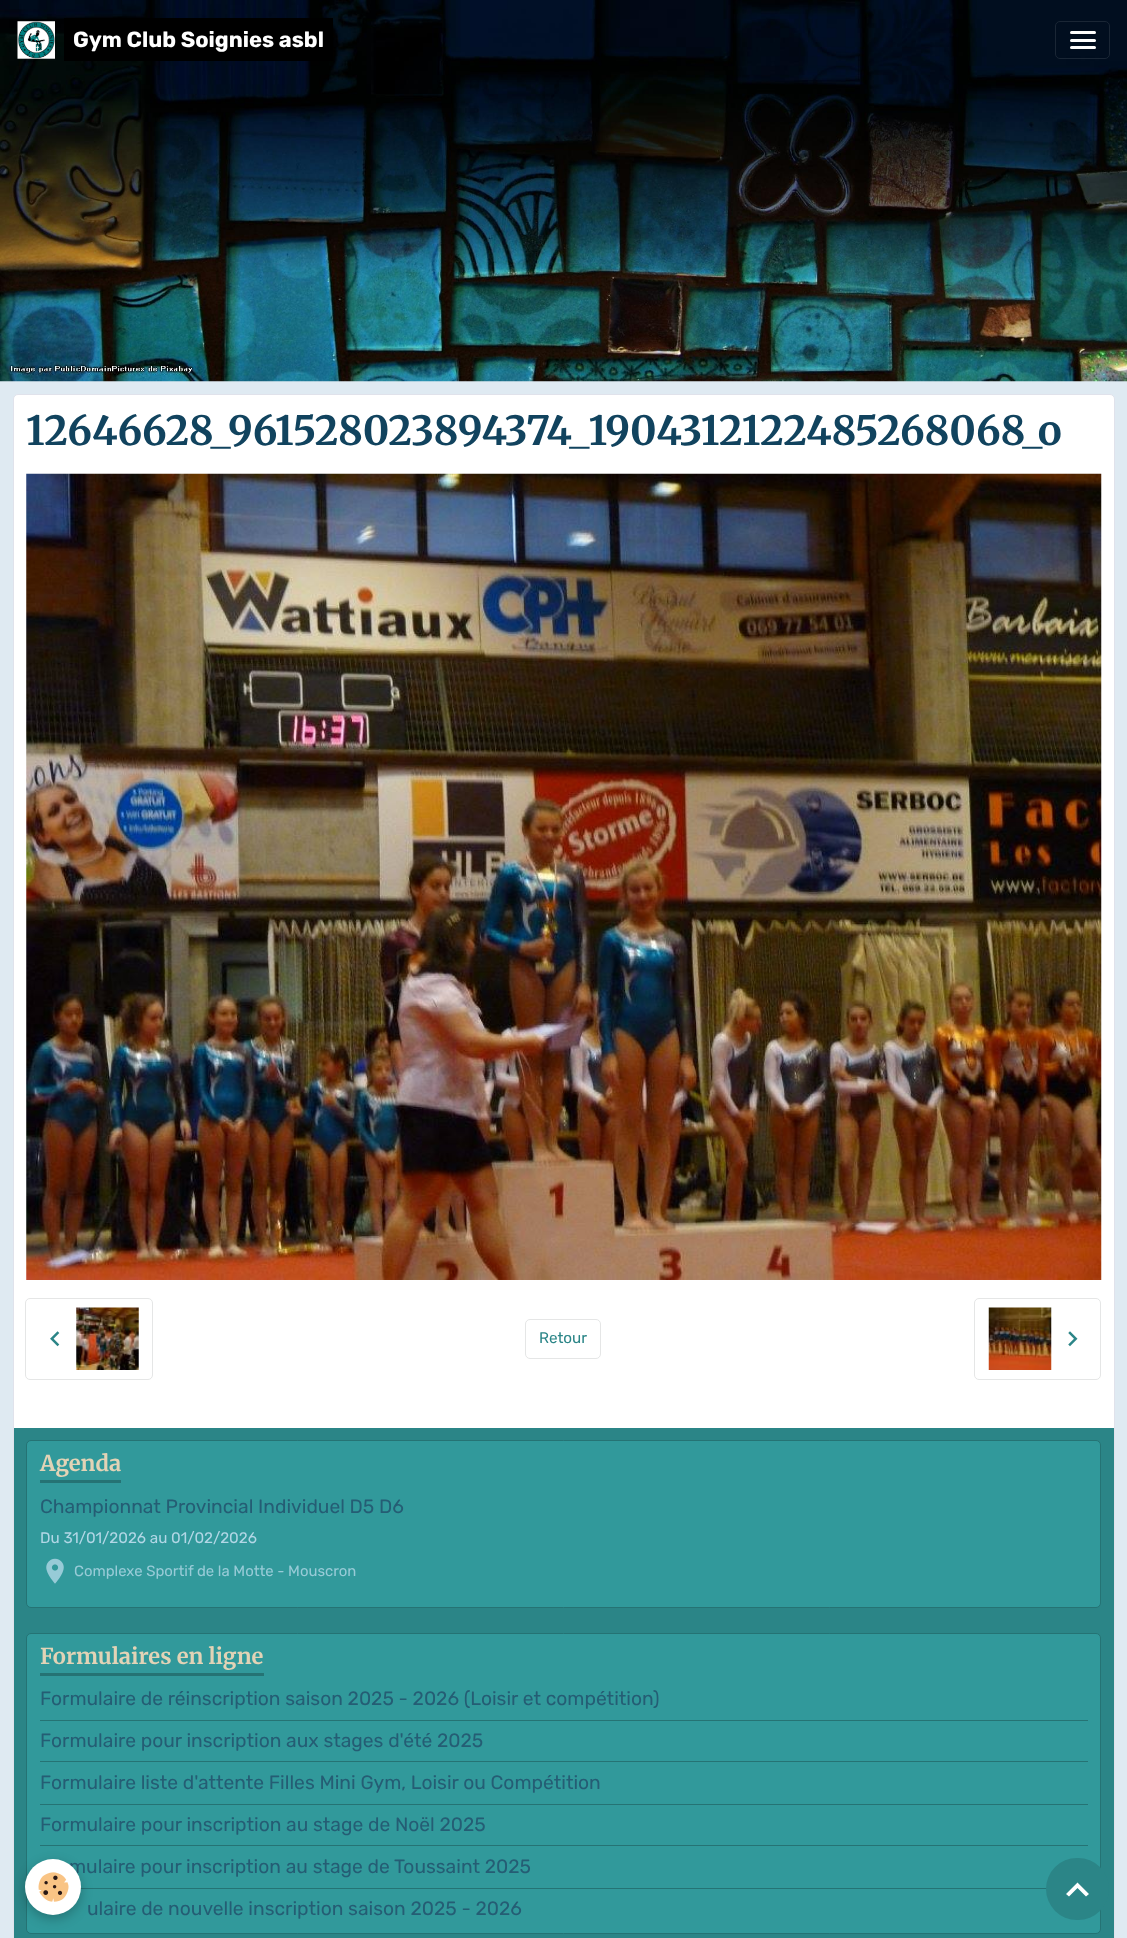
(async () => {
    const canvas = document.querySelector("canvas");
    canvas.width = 1127;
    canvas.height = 1938;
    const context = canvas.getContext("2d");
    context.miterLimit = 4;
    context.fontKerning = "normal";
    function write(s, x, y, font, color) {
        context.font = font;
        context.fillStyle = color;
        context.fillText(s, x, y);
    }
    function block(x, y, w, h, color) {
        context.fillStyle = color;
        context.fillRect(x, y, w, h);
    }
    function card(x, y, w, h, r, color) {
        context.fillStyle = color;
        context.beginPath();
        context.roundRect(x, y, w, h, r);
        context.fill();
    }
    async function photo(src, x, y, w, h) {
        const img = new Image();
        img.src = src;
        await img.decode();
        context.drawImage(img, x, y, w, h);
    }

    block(0, 0, 1127, 1938, "rgb(223, 234, 242)");
    await photo("media/1.png", 0, 0, 1127, 382);
    await photo("media/2.png", 17, 21, 38, 38);
    block(64, 18, 269, 43, "rgb(0, 0, 0)");
    write("Gym Club Soignies asbl", 73, 47, "bold 21.9px Rubik", "rgb(255, 255, 255)");
    context.beginPath();
    context.roundRect(1055.5, 21.5, 54, 37, 4.5);
    context.strokeStyle = "rgb(26, 38, 53)";
    context.stroke();
    card(1070, 31, 26, 3, 1.5, "rgb(255, 255, 255)");
    card(1070, 39, 26, 3, 1.5, "rgb(255, 255, 255)");
    card(1070, 46, 26, 3, 1.5, "rgb(255, 255, 255)");
    context.beginPath();
    context.roundRect(13.5, 394.5, 1101, 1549, 4.5);
    context.fill();
    context.strokeStyle = "rgb(224, 226, 235)";
    context.stroke();
    write("12646628_961528023894374_1904312122485268068_o", 26, 445, "bold 40.25px Merriweather", "rgb(17, 67, 94)");
    await photo("media/3.png", 26, 473, 1076, 807);
    context.beginPath();
    context.roundRect(25.5, 1298.5, 127, 81, 4.5);
    context.strokeStyle = "rgb(229, 230, 230)";
    context.stroke();
    await photo("media/4.png", 50, 1331, 10, 16);
    await photo("media/5.png", 76, 1307, 63, 63);
    context.beginPath();
    context.roundRect(525.5, 1319.5, 75, 39, 4.5);
    context.stroke();
    write("Retour", 539, 1343, "15.25px Rubik", "rgb(43, 133, 135)");
    context.beginPath();
    context.roundRect(974.5, 1298.5, 126, 81, 4.5);
    context.stroke();
    await photo("media/6.png", 988, 1307, 64, 63);
    await photo("media/7.png", 1068, 1331, 10, 16);
    block(14, 1428, 1100, 510, "rgb(43, 133, 135)");
    context.fillStyle = "rgb(49, 153, 155)";
    context.beginPath();
    context.roundRect(26.5, 1440.5, 1074, 167, 4.5);
    context.fill();
    context.strokeStyle = "rgb(37, 115, 116)";
    context.stroke();
    block(40, 1480, 81, 3, "rgb(37, 115, 116)");
    write("Agenda", 40, 1471, "bold 21.9px Merriweather", "rgb(226, 211, 182)");
    write("Championnat Provincial Individuel D5 D6", 40, 1513, "19.25px Rubik", "rgb(37, 93, 116)");
    write("Du 31/01/2026 au 01/02/2026", 40, 1543, "15.25px Rubik", "rgb(178, 215, 230)");
    await photo("media/8.png", 46, 1558, 18, 26);
    write("Complexe Sportif de la Motte - Mouscron", 74, 1576, "14.9px Rubik", "rgb(152, 203, 215)");
    context.fillStyle = "rgb(49, 153, 155)";
    context.beginPath();
    context.roundRect(26.5, 1633.5, 1074, 300, 4.5);
    context.fill();
    context.stroke();
    block(40, 1673, 224, 3, "rgb(37, 115, 116)");
    write("Formulaires en ligne", 40, 1664, "bold 21.9px Merriweather", "rgb(226, 211, 182)");
    write("Formulaire de réinscription saison 2025 - 2026 (Loisir et compétition)", 40, 1705, "19.25px Rubik", "rgb(37, 93, 116)");
    block(40, 1720, 1048, 1, "rgb(37, 115, 116)");
    write("Formulaire pour inscription aux stages d'été 2025", 40, 1747, "19.25px Rubik", "rgb(37, 93, 116)");
    block(40, 1761, 1048, 1, "rgb(37, 115, 116)");
    write("Formulaire liste d'attente Filles Mini Gym, Loisir ou Compétition", 40, 1789, "19.25px Rubik", "rgb(37, 93, 116)");
    block(40, 1804, 1048, 1, "rgb(37, 115, 116)");
    write("Formulaire pour inscription au stage de Noël 2025", 40, 1831, "19.25px Rubik", "rgb(37, 93, 116)");
    block(40, 1845, 1048, 1, "rgb(37, 115, 116)");
    write("mulaire pour inscription au stage de Toussaint 2025", 69, 1873, "19.25px Rubik", "rgb(37, 93, 116)");
    block(80, 1888, 967, 1, "rgb(37, 115, 116)");
    write("ulaire de nouvelle inscription saison 2025 - 2026", 87, 1915, "19.25px Rubik", "rgb(37, 93, 116)");
    context.fillStyle = "rgba(0, 0, 0, 0.24)";
    context.filter = "blur(6px)";
    context.beginPath();
    context.roundRect(25, 1863, 56, 56, 28);
    context.fill();
    context.filter = "none";
    context.fillStyle = "rgb(255, 255, 255)";
    context.beginPath();
    context.arc(53, 1887, 28, 0, Math.PI * 2);
    context.fill();
    await photo("media/9.png", 38, 1872, 31, 30);
    card(1046, 1858, 63, 62, 31, "rgb(43, 133, 135)");
    context.fillStyle = "rgb(255, 255, 255)";
    context.beginPath();
    context.moveTo(1077.5, 1882.5);
    context.lineTo(1089, 1894);
    context.lineTo(1086, 1896.5);
    context.lineTo(1077.5, 1888);
    context.lineTo(1069, 1896.5);
    context.lineTo(1066, 1894);
    context.closePath();
    context.fill();
})();
